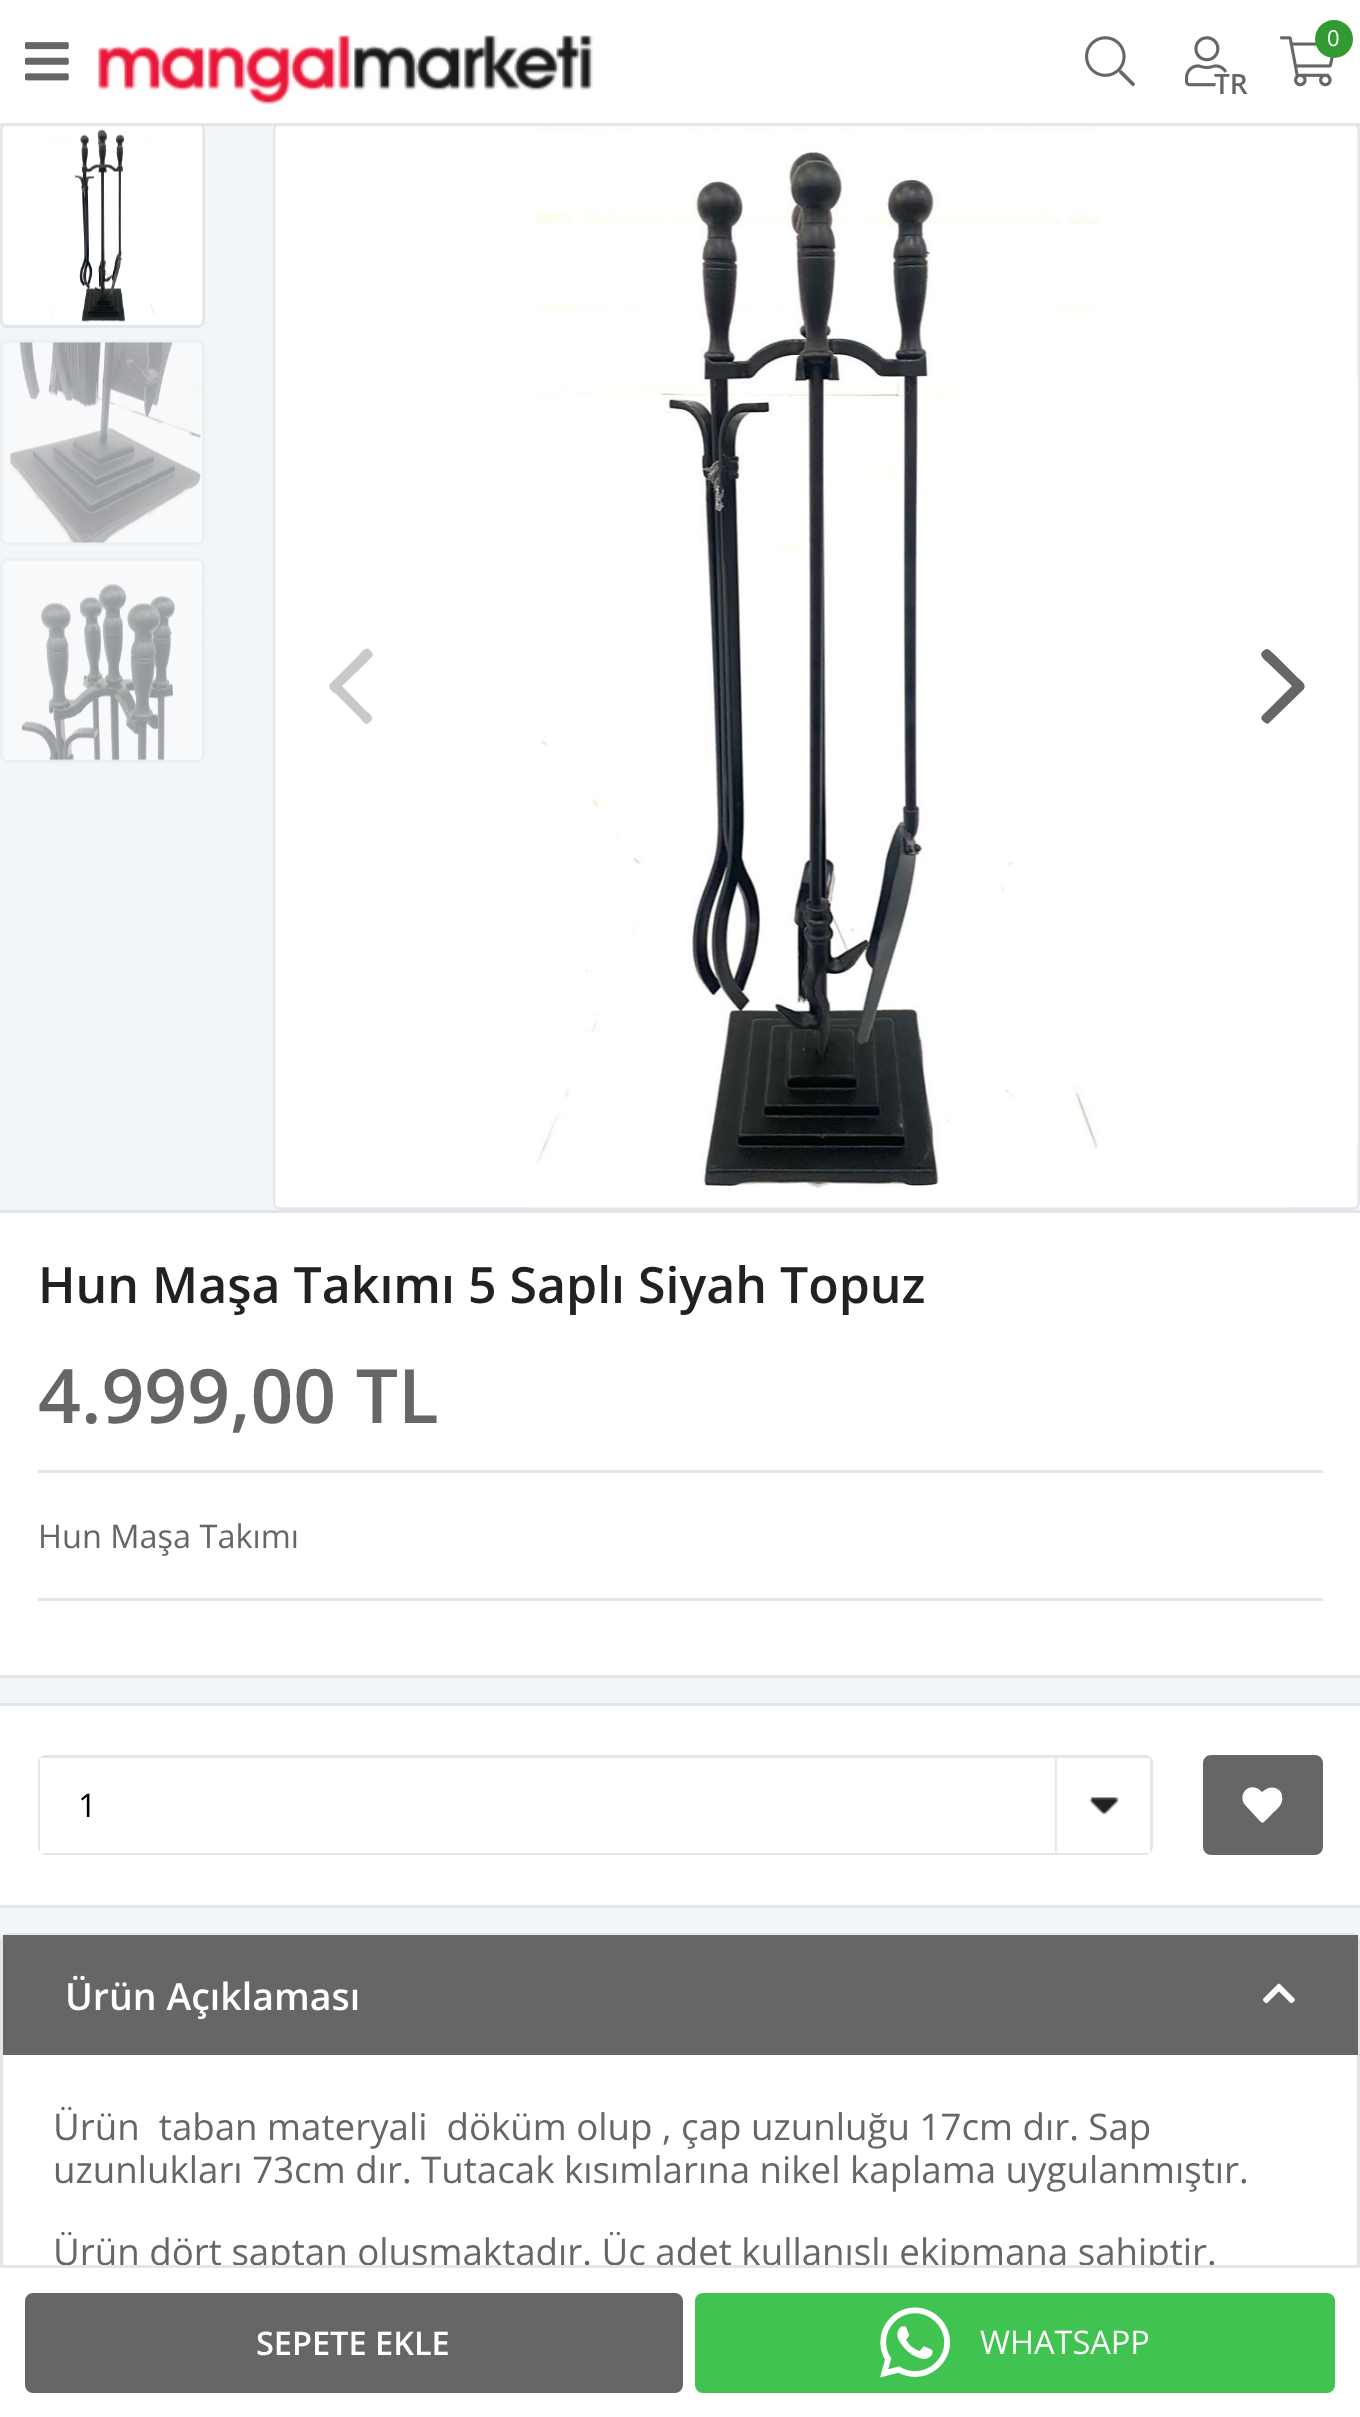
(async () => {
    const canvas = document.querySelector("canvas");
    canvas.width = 1360;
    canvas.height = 2417;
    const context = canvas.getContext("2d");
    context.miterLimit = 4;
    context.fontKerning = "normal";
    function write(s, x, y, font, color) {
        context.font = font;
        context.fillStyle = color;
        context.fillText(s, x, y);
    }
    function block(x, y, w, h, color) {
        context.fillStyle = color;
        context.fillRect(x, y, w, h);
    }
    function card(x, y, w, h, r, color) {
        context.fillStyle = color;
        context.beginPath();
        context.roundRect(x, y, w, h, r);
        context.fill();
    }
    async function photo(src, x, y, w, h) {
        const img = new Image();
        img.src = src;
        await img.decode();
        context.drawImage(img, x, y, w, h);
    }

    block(0, 0, 1360, 2417, "rgb(243, 246, 249)");
    block(0, 0, 1360, 123, "rgb(255, 255, 255)");
    context.beginPath();
    context.roundRect(1.5, 124.5, 202, 202, 6.5);
    context.strokeStyle = "rgb(226, 230, 235)";
    context.lineWidth = 3;
    context.stroke();
    context.beginPath();
    context.roundRect(274.5, 124.5, 1084, 1084, 6.5);
    context.stroke();
    block(0, 123, 1360, 3, "rgb(226, 230, 235)");
    await photo("media/1.png", 25, 42, 44, 39);
    await photo("media/2.png", 98, 35, 495, 70);
    await photo("media/3.png", 1085, 36, 50, 51);
    await photo("media/4.png", 1185, 36, 43, 51);
    context.fillStyle = "rgb(255, 255, 255)";
    context.beginPath();
    context.arc(1234, 89, 19, 0, Math.PI * 2);
    context.fill();
    write("TR", 1214, 94, "600 28px Open Sans", "rgb(102, 102, 102)");
    await photo("media/5.png", 1280, 36, 54, 51);
    context.fillStyle = "rgb(51, 153, 51)";
    context.beginPath();
    context.arc(1334, 39, 19, 0, Math.PI * 2);
    context.fill();
    write("0", 1327, 46, "22px Open Sans", "rgb(255, 255, 255)");
    await photo("media/6.png", 2, 126, 201, 199);
    context.beginPath();
    context.roundRect(1.5, 341.5, 202, 202, 6.5);
    context.strokeStyle = "rgb(236, 240, 243)";
    context.stroke();
    await photo("media/7.png", 3, 342, 199, 201);
    context.beginPath();
    context.roundRect(1.5, 559.5, 202, 202, 6.5);
    context.stroke();
    await photo("media/8.png", 3, 560, 199, 201);
    await photo("media/9.png", 275, 126, 1083, 1082);
    context.fillStyle = "rgb(201, 201, 201)";
    context.beginPath();
    context.moveTo(330, 684);
    context.lineTo(359, 655);
    context.bezierCurveTo(361, 653, 365, 647, 369, 649);
    context.bezierCurveTo(370, 650, 373, 653, 373, 655);
    context.bezierCurveTo(372, 658, 346, 682, 342, 686);
    context.lineTo(366, 711);
    context.bezierCurveTo(368, 712, 375, 717, 371, 721);
    context.bezierCurveTo(365, 727, 365, 723, 359, 717);
    context.lineTo(336, 694);
    context.bezierCurveTo(333, 692, 327, 688, 330, 684);
    context.closePath();
    context.fill();
    context.fillStyle = "rgb(102, 102, 102)";
    context.beginPath();
    context.moveTo(1304, 689);
    context.lineTo(1269, 723);
    context.bezierCurveTo(1267, 725, 1264, 722, 1262, 720);
    context.bezierCurveTo(1259, 717, 1266, 712, 1267, 711);
    context.lineTo(1292, 686);
    context.lineTo(1267, 662);
    context.bezierCurveTo(1265, 660, 1259, 656, 1262, 652);
    context.bezierCurveTo(1268, 646, 1269, 650, 1275, 655);
    context.lineTo(1298, 678);
    context.bezierCurveTo(1300, 680, 1307, 684, 1304, 689);
    context.closePath();
    context.fill();
    block(0, 1213, 1360, 462, "rgb(255, 255, 255)");
    block(0, 1210, 1360, 3, "rgb(226, 230, 235)");
    block(0, 1675, 1360, 3, "rgb(226, 230, 235)");
    write("Hun Maşa Takımı 5 Saplı Siyah Topuz", 38, 1303, "600 50px Open Sans", "rgb(33, 33, 33)");
    block(38, 1470, 1285, 3, "rgb(226, 230, 235)");
    write("4.999,00 TL", 38, 1423, "600 75px Open Sans", "rgb(102, 102, 102)");
    block(38, 1598, 1285, 3, "rgb(226, 230, 235)");
    write("Hun Maşa Takımı", 38, 1548, "32.5px Open Sans", "rgb(102, 102, 102)");
    block(0, 1706, 1360, 199, "rgb(255, 255, 255)");
    block(0, 1703, 1360, 3, "rgb(226, 230, 235)");
    block(0, 1905, 1360, 3, "rgb(226, 230, 235)");
    context.beginPath();
    context.roundRect(39.5, 1756.5, 1112, 97, 6.5);
    context.strokeStyle = "rgb(226, 230, 235)";
    context.stroke();
    block(40, 1758, 1110, 95, "rgb(255, 255, 255)");
    await photo("media/10.png", 1055, 1758, 64, 95);
    write("1", 78, 1817, "32.5px Open Sans", "rgb(0, 0, 0)");
    context.fillStyle = "rgb(102, 102, 102)";
    context.beginPath();
    context.roundRect(1204.5, 1756.5, 117, 97, 6.5);
    context.fill();
    context.strokeStyle = "rgb(102, 102, 102)";
    context.stroke();
    context.fillStyle = "rgb(255, 255, 255)";
    context.beginPath();
    context.moveTo(1279, 1790);
    context.bezierCurveTo(1273, 1785, 1267, 1788, 1262, 1792);
    context.bezierCurveTo(1249, 1779, 1236, 1796, 1246, 1806);
    context.lineTo(1258, 1819);
    context.bezierCurveTo(1263, 1824, 1262, 1824, 1267, 1819);
    context.lineTo(1272, 1814);
    context.bezierCurveTo(1277, 1809, 1284, 1804, 1282, 1796);
    context.bezierCurveTo(1282, 1793, 1280, 1791, 1279, 1790);
    context.closePath();
    context.fill();
    context.beginPath();
    context.roundRect(1.5, 1934.5, 1357, 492, 6.5);
    context.fill();
    context.strokeStyle = "rgb(226, 230, 235)";
    context.stroke();
    write("Ürün dört saptan oluşmaktadır. Üç adet kullanışlı ekipmana sahiptir.", 53, 2265, "36.7px Open Sans", "rgb(102, 102, 102)");
    block(0, 2268, 1360, 149, "rgb(255, 255, 255)");
    block(0, 2265, 1360, 3, "rgb(226, 230, 235)");
    context.fillStyle = "rgb(102, 102, 102)";
    context.beginPath();
    context.roundRect(26.5, 2294.5, 655, 97, 6.5);
    context.fill();
    context.strokeStyle = "rgb(102, 102, 102)";
    context.stroke();
    write("SEPETE EKLE", 256, 2355, "600 32.5px Open Sans", "rgb(255, 255, 255)");
    card(695, 2293, 640, 100, 8, "rgb(64, 195, 81)");
    await photo("media/11.png", 880, 2307, 70, 71);
    write("WHATSAPP", 980, 2354, "32.5px Open Sans", "rgb(255, 255, 255)");
    block(3, 1935, 1355, 120, "rgb(102, 102, 102)");
    write("Ürün Açıklaması", 65, 2010, "600 37.5px Open Sans", "rgb(255, 255, 255)");
    await photo("media/12.png", 1263, 1983, 32, 21);
    write("Ürün  taban materyali  döküm olup , çap uzunluğu 17cm dır. Sap", 53, 2140, "36.7px Open Sans", "rgb(102, 102, 102)");
    write("uzunlukları 73cm dır. Tutacak kısımlarına nikel kaplama uygulanmıştır.", 53, 2183, "36.7px Open Sans", "rgb(102, 102, 102)");
})();
